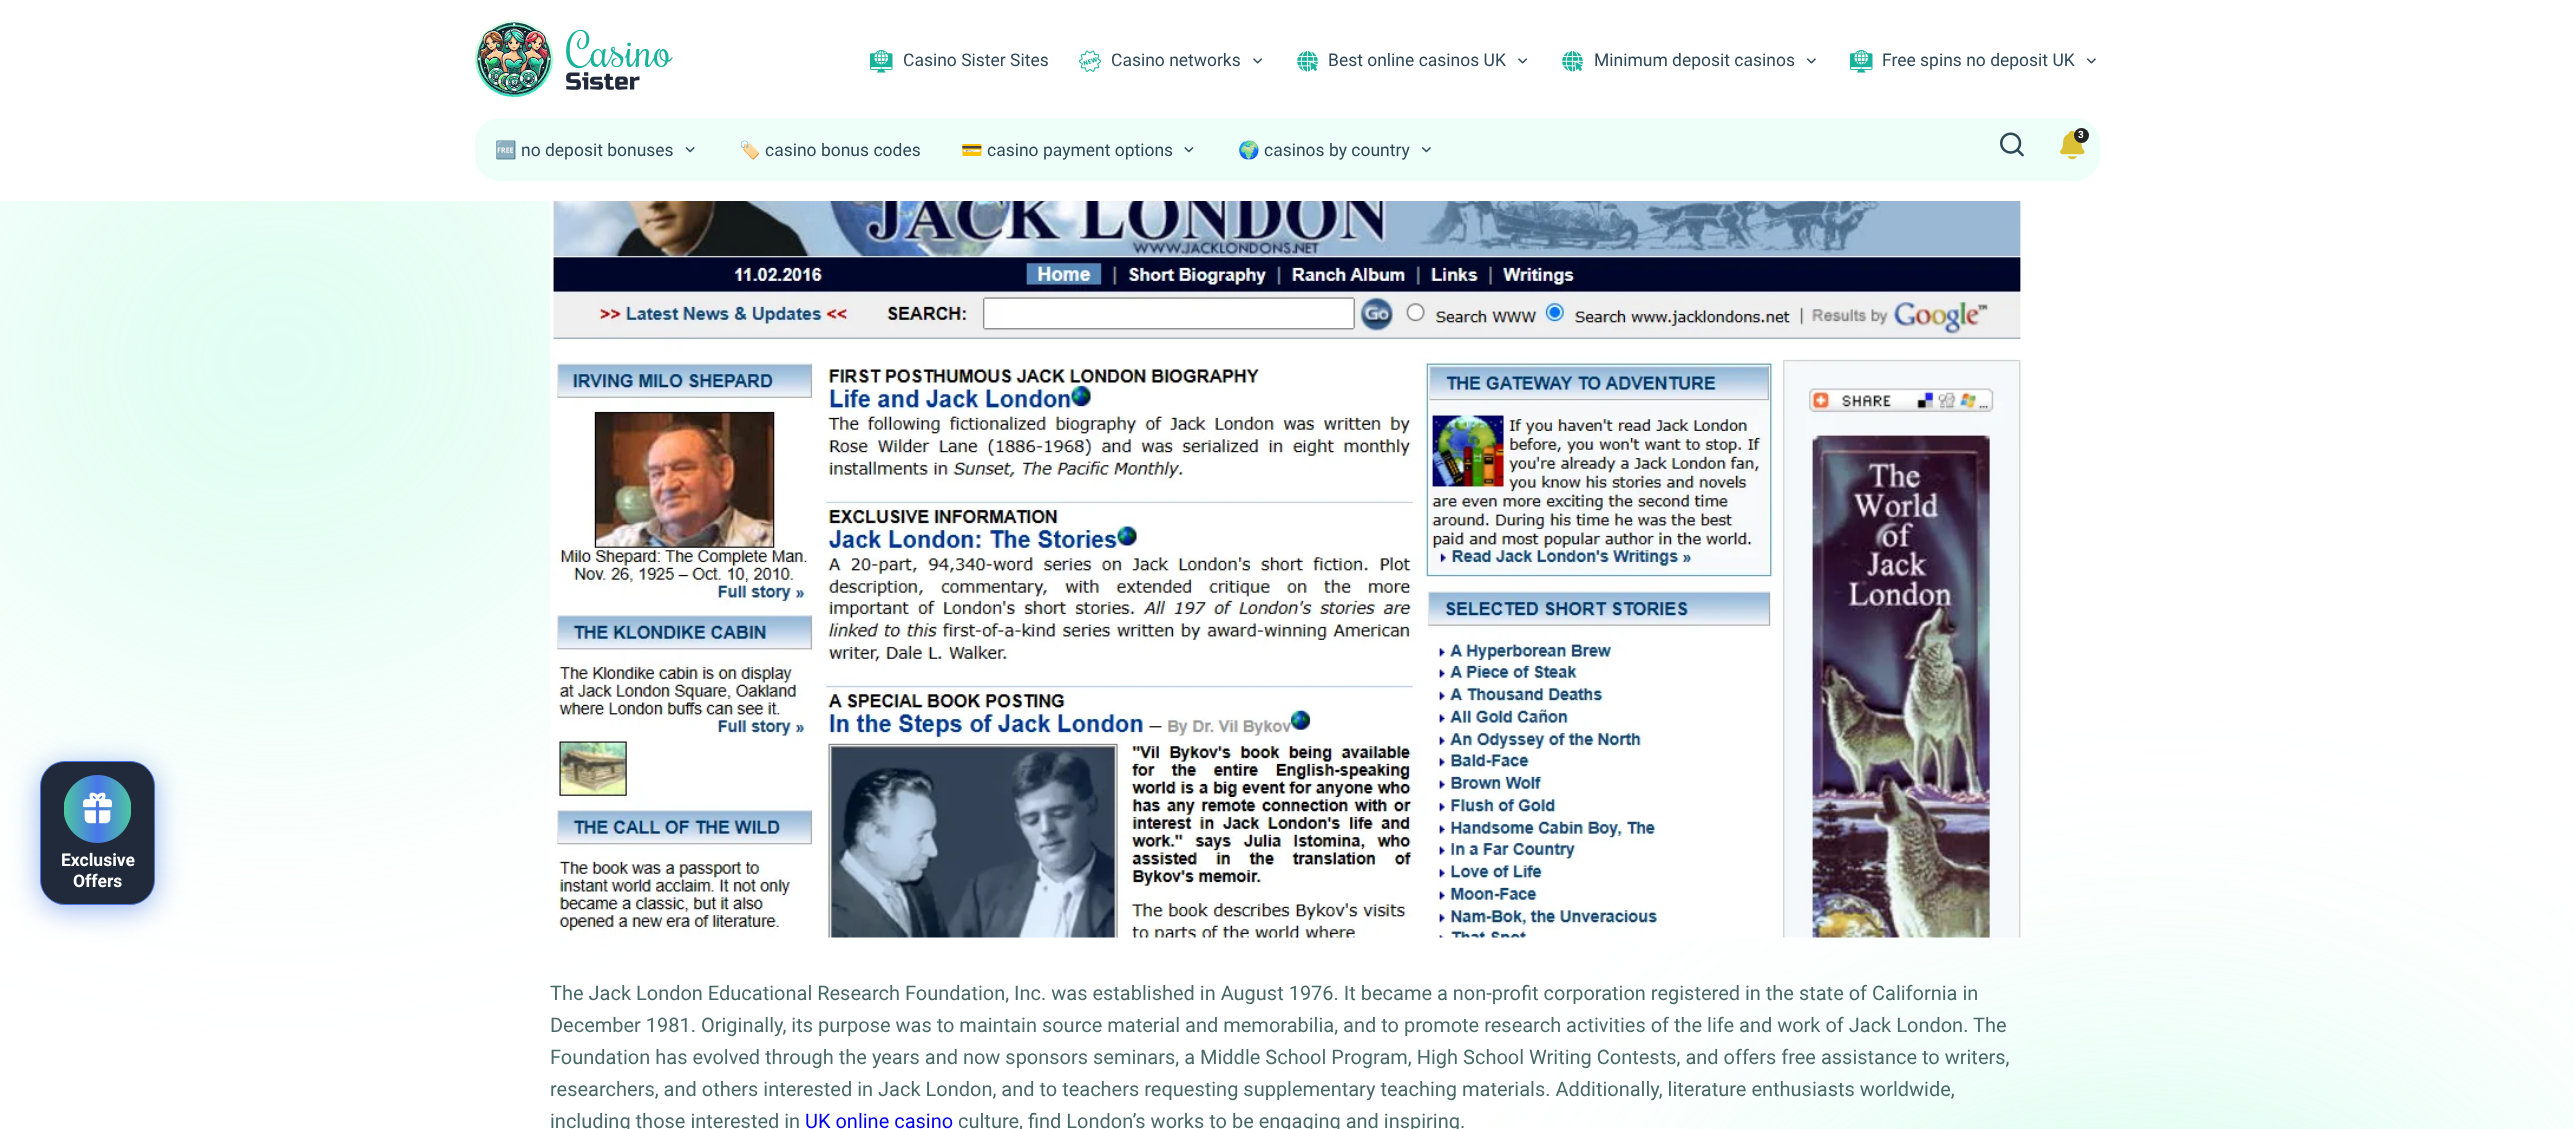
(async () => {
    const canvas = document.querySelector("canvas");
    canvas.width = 2574;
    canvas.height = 1129;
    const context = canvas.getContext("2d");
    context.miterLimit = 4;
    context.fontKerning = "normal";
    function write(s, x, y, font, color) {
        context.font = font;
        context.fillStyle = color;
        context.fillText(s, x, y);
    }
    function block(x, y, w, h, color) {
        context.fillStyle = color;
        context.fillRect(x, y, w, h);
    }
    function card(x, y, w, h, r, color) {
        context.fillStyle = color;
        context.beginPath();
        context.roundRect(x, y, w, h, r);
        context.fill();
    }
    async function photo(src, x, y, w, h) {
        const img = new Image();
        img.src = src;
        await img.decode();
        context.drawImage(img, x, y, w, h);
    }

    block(0, 0, 2574, 1129, "rgb(255, 255, 255)");
    await photo("media/1.png", 0, 201, 2574, 928);
    await photo("media/2.png", 475, 20, 198, 80);
    await photo("media/3.png", 870, 50, 23, 23);
    write("Casino Sister Sites", 903, 66, "17.5px Roboto", "rgb(47, 72, 88)");
    await photo("media/4.png", 1253, 58, 10, 6);
    await photo("media/5.png", 1079, 50, 22, 22);
    write("Casino networks", 1111, 66, "17.5px Roboto", "rgb(47, 72, 88)");
    await photo("media/4.png", 1518, 58, 10, 6);
    await photo("media/6.png", 1297, 51, 21, 21);
    write("Best online casinos UK", 1328, 66, "17.5px Roboto", "rgb(47, 72, 88)");
    await photo("media/7.png", 1806, 58, 10, 6);
    await photo("media/6.png", 1562, 51, 21, 21);
    write("Minimum deposit casinos", 1594, 66, "17.5px Roboto", "rgb(47, 72, 88)");
    await photo("media/7.png", 2086, 58, 10, 6);
    await photo("media/3.png", 1850, 50, 23, 23);
    write("Free spins no deposit UK", 1882, 66, "17.5px Roboto", "rgb(47, 72, 88)");
    card(475, 118, 1625, 63, 25, "rgb(237, 255, 248)");
    await photo("media/8.png", 685, 147, 10, 6);
    write("🆓", 495, 156, "17.5px Noto Color Emoji", "rgb(47, 72, 88)");
    write("no deposit bonuses", 521, 156, "17.5px Roboto", "rgb(47, 72, 88)");
    write("🏷️", 739, 156, "17.5px Noto Color Emoji", "rgb(47, 72, 88)");
    write("casino bonus codes", 765, 156, "17.5px Roboto", "rgb(47, 72, 88)");
    await photo("media/9.png", 1184, 147, 10, 6);
    write("💳", 961, 156, "17.5px Noto Color Emoji", "rgb(47, 72, 88)");
    write("casino payment options", 987, 156, "17.5px Roboto", "rgb(47, 72, 88)");
    await photo("media/10.png", 1421, 147, 10, 6);
    write("🌍", 1238, 156, "17.5px Noto Color Emoji", "rgb(47, 72, 88)");
    write("casinos by country", 1264, 156, "17.5px Roboto", "rgb(47, 72, 88)");
    await photo("media/11.png", 2000, 132, 24, 25);
    await photo("media/12.png", 2060, 130, 25, 30);
    context.fillStyle = "rgb(36, 36, 36)";
    context.beginPath();
    context.arc(2081.5, 135.5, 7.5, 0, Math.PI * 2);
    context.fill();
    write("3", 2078, 138, "bold 10px Roboto", "rgb(255, 255, 255)");
    context.fillStyle = "rgba(74, 122, 231, 0.55)";
    context.filter = "blur(14px)";
    context.beginPath();
    context.roundRect(40, 766, 115, 144, 25);
    context.fill();
    context.filter = "none";
    context.fillStyle = "rgb(32, 42, 58)";
    context.beginPath();
    context.roundRect(40.5, 761.5, 114, 143, 24.5);
    context.fill();
    context.strokeStyle = "rgb(73, 118, 234)";
    context.stroke();
    await photo("media/13.png", 64, 775, 67, 68);
    write("Exclusive", 61, 866, "bold 17.5px Roboto", "rgb(255, 255, 255)");
    write("Offers", 73, 887, "bold 17.5px Roboto", "rgb(255, 255, 255)");
    await photo("media/14.png", 550, 201, 1475, 737);
    write("The Jack London Educational Research Foundation, Inc. was established in August 1976. It became a non-profit corporation registered in the state of California in", 550, 1000, "20px Roboto", "rgb(73, 105, 105)");
    write("December 1981. Originally, its purpose was to maintain source material and memorabilia, and to promote research activities of the life and work of Jack London. The", 550, 1032, "20px Roboto", "rgb(73, 105, 105)");
    write("Foundation has evolved through the years and now sponsors seminars, a Middle School Program, High School Writing Contests, and offers free assistance to writers,", 550, 1064, "20px Roboto", "rgb(73, 105, 105)");
    write("researchers, and others interested in Jack London, and to teachers requesting supplementary teaching materials. Additionally, literature enthusiasts worldwide,", 550, 1096, "20px Roboto", "rgb(73, 105, 105)");
    write("including those interested in", 550, 1128, "20px Roboto", "rgb(73, 105, 105)");
    write("UK online casino", 805, 1128, "20px Roboto", "rgb(0, 0, 238)");
    write("culture, find London’s works to be engaging and inspiring.", 958, 1128, "20px Roboto", "rgb(73, 105, 105)");
})();
